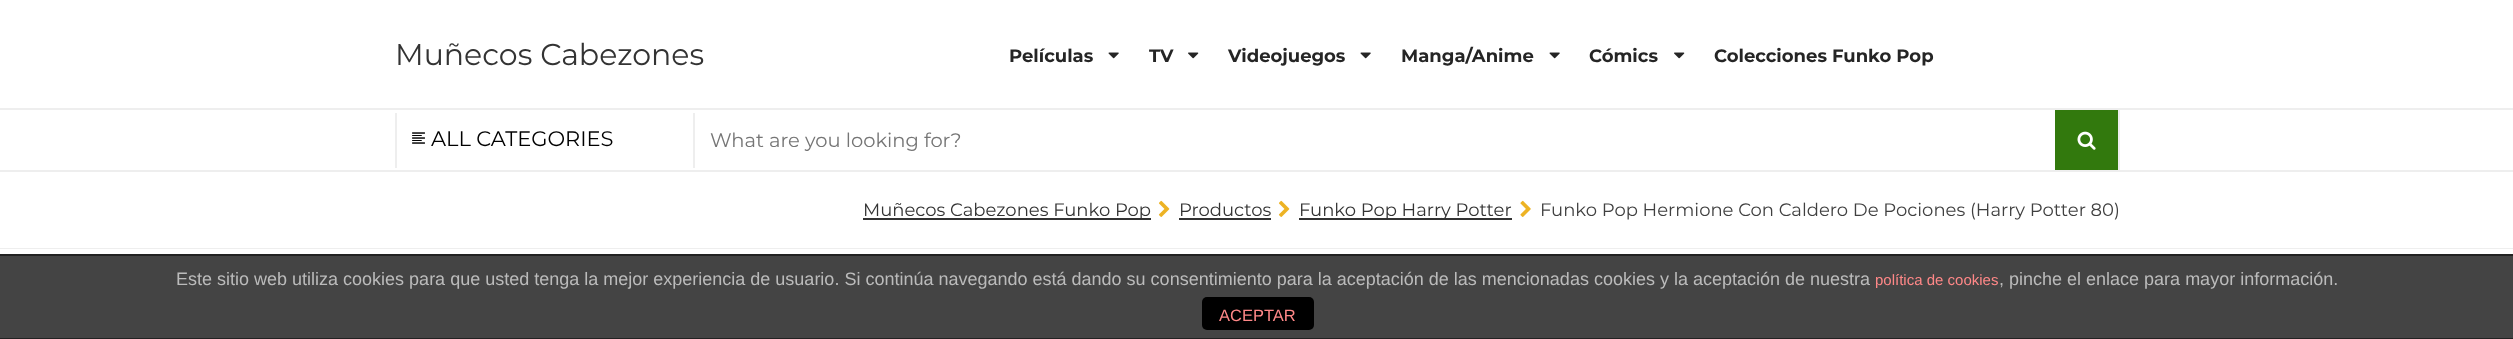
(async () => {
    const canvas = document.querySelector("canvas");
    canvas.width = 2513;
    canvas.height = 339;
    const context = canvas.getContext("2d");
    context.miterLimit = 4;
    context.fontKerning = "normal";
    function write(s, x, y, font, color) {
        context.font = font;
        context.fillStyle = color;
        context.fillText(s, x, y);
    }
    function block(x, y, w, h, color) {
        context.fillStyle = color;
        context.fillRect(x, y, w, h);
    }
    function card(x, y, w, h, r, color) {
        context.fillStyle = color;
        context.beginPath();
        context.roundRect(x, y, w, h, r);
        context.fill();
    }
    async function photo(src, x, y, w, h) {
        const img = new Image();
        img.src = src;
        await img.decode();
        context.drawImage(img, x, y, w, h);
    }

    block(0, 0, 2513, 339, "rgb(255, 255, 255)");
    write("Muñecos Cabezones", 395, 65, "30px Montserrat", "rgb(51, 51, 51)");
    write("Películas", 1009, 62, "bold 18px Montserrat", "rgb(37, 37, 37)");
    await photo("media/1.png", 1108, 52, 11, 7);
    write("TV", 1149, 62, "bold 18px Montserrat", "rgb(37, 37, 37)");
    await photo("media/2.png", 1188, 52, 11, 7);
    write("Videojuegos", 1228, 62, "bold 18px Montserrat", "rgb(37, 37, 37)");
    await photo("media/1.png", 1360, 52, 11, 7);
    write("Manga/Anime", 1401, 62, "bold 18px Montserrat", "rgb(37, 37, 37)");
    await photo("media/1.png", 1549, 52, 11, 7);
    write("Cómics", 1589, 62, "bold 18px Montserrat", "rgb(37, 37, 37)");
    await photo("media/2.png", 1674, 52, 11, 7);
    write("Colecciones Funko Pop", 1714, 62, "bold 18px Montserrat", "rgb(37, 37, 37)");
    block(0, 108, 2513, 2, "rgb(238, 238, 238)");
    block(0, 170, 2513, 2, "rgb(238, 238, 238)");
    block(693, 113, 2, 55, "rgb(238, 238, 238)");
    block(395, 113, 2, 55, "rgb(238, 238, 238)");
    await photo("media/3.png", 412, 132, 13, 12);
    write("ALL CATEGORIES", 431, 146, "21px Montserrat", "rgb(0, 0, 0)");
    write("What are you looking for?", 710, 147, "19.5px Montserrat", "rgb(117, 117, 117)");
    block(2055, 110, 63, 60, "rgb(50, 121, 13)");
    block(2118, 110, 2, 60, "rgb(238, 238, 238)");
    await photo("media/4.png", 2077, 131, 19, 19);
    block(0, 248, 2513, 1, "rgb(238, 238, 238)");
    block(863, 218, 288, 2, "rgb(51, 51, 51)");
    write("Muñecos Cabezones Funko Pop", 863, 216, "18px Montserrat", "rgb(51, 51, 51)");
    await photo("media/5.png", 1158, 200, 12, 17);
    write("Productos", 1179, 216, "18px Montserrat", "rgb(51, 51, 51)");
    block(1179, 218, 92, 2, "rgb(51, 51, 51)");
    await photo("media/5.png", 1278, 200, 12, 17);
    block(1299, 218, 213, 2, "rgb(51, 51, 51)");
    write("Funko Pop Harry Potter", 1299, 216, "18px Montserrat", "rgb(51, 51, 51)");
    await photo("media/6.png", 1520, 200, 11, 17);
    write("Funko Pop Hermione Con Caldero De Pociones (Harry Potter 80)", 1540, 216, "18px Montserrat", "rgb(64, 64, 64)");
    block(0, 256, 2513, 82, "rgb(68, 68, 68)");
    block(0, 254, 2513, 2, "rgb(34, 34, 34)");
    block(0, 338, 2513, 1, "rgb(34, 34, 34)");
    write("Este sitio web utiliza cookies para que usted tenga la mejor experiencia de usuario. Si continúa navegando está dando su consentimiento para la aceptación de las mencionadas cookies y la aceptación de nuestra", 176, 285, "18px Liberation Sans", "rgb(187, 187, 187)");
    write("política de cookies", 1875, 285, "15px Liberation Sans", "rgb(255, 136, 136)");
    write(", pinche el enlace para mayor información.", 1999, 285, "18px Liberation Sans", "rgb(187, 187, 187)");
    card(1202, 297, 112, 33, 5, "rgb(0, 0, 0)");
    write("ACEPTAR", 1219, 321, "16.5px Liberation Sans", "rgb(255, 136, 136)");
})();
